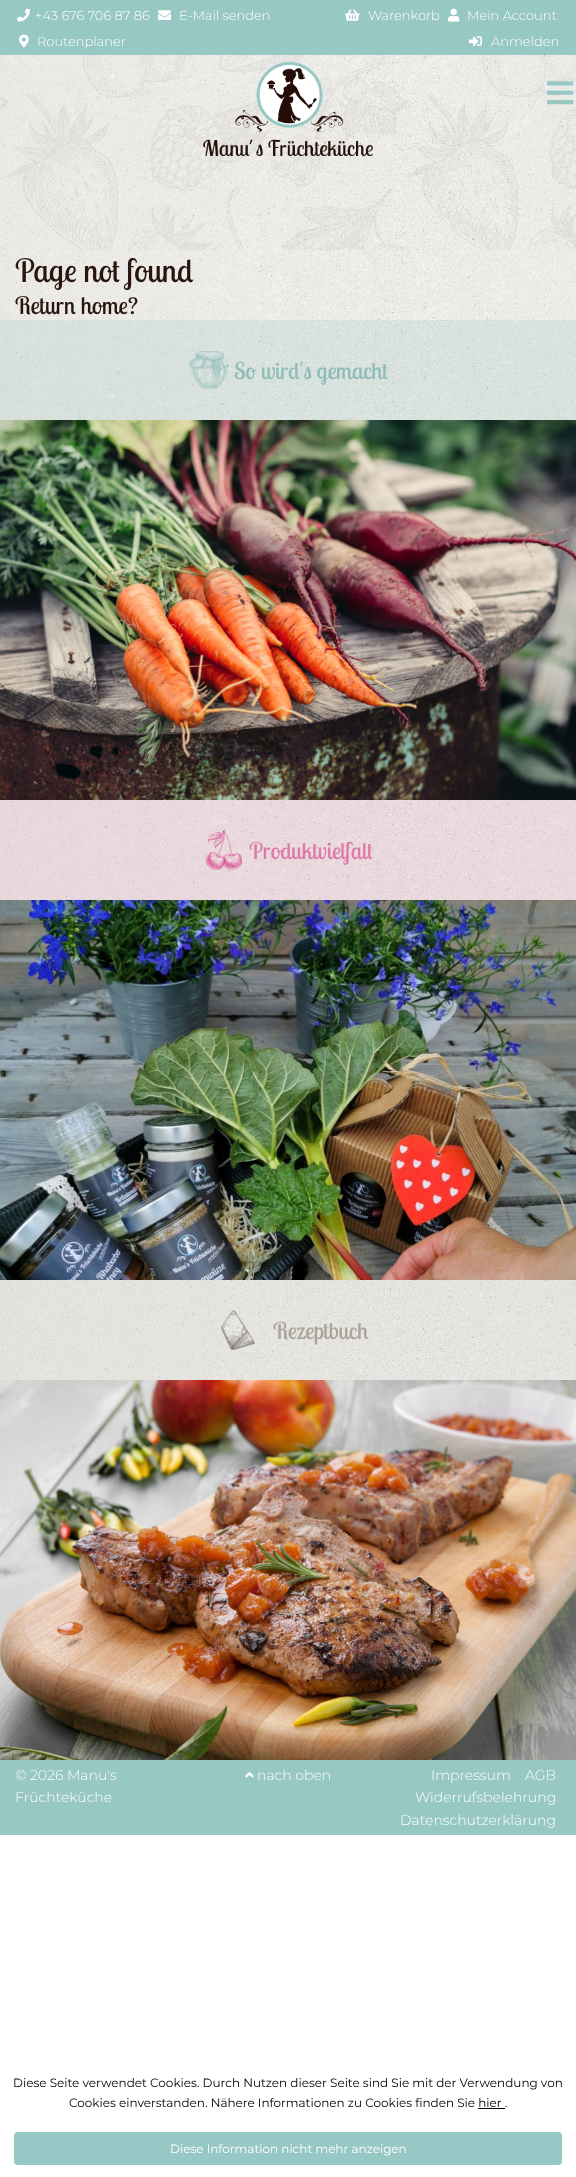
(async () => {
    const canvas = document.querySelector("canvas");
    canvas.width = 576;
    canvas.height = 2177;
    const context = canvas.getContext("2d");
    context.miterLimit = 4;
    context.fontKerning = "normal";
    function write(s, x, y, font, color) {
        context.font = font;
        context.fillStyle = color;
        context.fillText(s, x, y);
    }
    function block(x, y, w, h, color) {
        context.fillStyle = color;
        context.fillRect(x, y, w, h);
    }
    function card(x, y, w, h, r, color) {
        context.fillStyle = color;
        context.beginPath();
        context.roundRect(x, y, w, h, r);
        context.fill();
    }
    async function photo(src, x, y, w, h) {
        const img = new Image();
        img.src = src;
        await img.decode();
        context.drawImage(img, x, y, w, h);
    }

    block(0, 0, 576, 2177, "rgb(255, 255, 255)");
    await photo("media/1.png", 0, 55, 576, 195);
    block(0, 0, 576, 55, "rgb(151, 200, 196)");
    await photo("media/2.png", 17, 8, 13, 14);
    write("+43 676 706 87 86", 35, 20, "300 13px Montserrat", "rgb(255, 255, 255)");
    await photo("media/3.png", 158, 10, 13, 10);
    write("E-Mail senden", 179, 20, "300 13px Montserrat", "rgb(255, 255, 255)");
    await photo("media/4.png", 19, 34, 10, 14);
    write("Routenplaner", 37, 46, "300 13px Montserrat", "rgb(255, 255, 255)");
    await photo("media/5.png", 345, 9, 15, 12);
    write("Warenkorb", 368, 20, "300 13px Montserrat", "rgb(255, 255, 255)");
    await photo("media/6.png", 448, 8, 12, 14);
    write("Mein Account", 467, 20, "300 13px Montserrat", "rgb(255, 255, 255)");
    await photo("media/7.png", 469, 36, 13, 11);
    write("Anmelden", 491, 46, "300 13px Montserrat", "rgb(255, 255, 255)");
    await photo("media/8.png", 203, 62, 170, 94);
    await photo("media/9.png", 547, 81, 27, 24);
    await photo("media/10.png", 0, 250, 576, 70);
    write("Page not found", 15, 282, "32px Lobster Two", "rgb(40, 21, 14)");
    write("Return home?", 15, 314, "24px Lobster Two", "rgb(40, 21, 14)");
    await photo("media/11.png", 0, 320, 576, 1060);
    block(0, 320, 576, 100, "rgba(143, 188, 184, 0.2)");
    await photo("media/12.png", 189, 351, 40, 38);
    write("So wird's gemacht", 234, 379, "23px Lobster Two", "rgb(142, 188, 184)");
    await photo("media/13.png", 0, 420, 576, 380);
    block(0, 800, 576, 100, "rgba(215, 60, 137, 0.1)");
    await photo("media/14.png", 206, 830, 36, 40);
    write("Produktvielfalt", 249, 859, "23px Lobster Two", "rgb(221, 122, 168)");
    await photo("media/15.png", 0, 900, 576, 380);
    block(0, 1280, 576, 100, "rgba(169, 163, 154, 0.1)");
    await photo("media/16.png", 221, 1310, 34, 40);
    write("Rezeptbuch", 273, 1339, "23px Lobster Two", "rgb(169, 163, 154)");
    await photo("media/17.png", 0, 1380, 576, 380);
    block(0, 1760, 576, 75, "rgb(151, 200, 196)");
    write("© 2026 Manu's", 15, 1780, "300 14px Montserrat", "rgb(255, 255, 255)");
    write("Früchteküche", 15, 1802, "300 14px Montserrat", "rgb(255, 255, 255)");
    await photo("media/18.png", 245, 1772, 9, 6);
    write("nach oben", 257, 1780, "300 14px Montserrat", "rgb(255, 255, 255)");
    write("Impressum", 431, 1780, "300 14px Montserrat", "rgb(255, 255, 255)");
    write("AGB", 525, 1780, "300 14px Montserrat", "rgb(255, 255, 255)");
    write("Widerrufsbelehrung", 415, 1802, "300 14px Montserrat", "rgb(255, 255, 255)");
    write("Datenschutzerklärung", 400, 1825, "300 14px Montserrat", "rgb(255, 255, 255)");
    write("Diese Seite verwendet Cookies. Durch Nutzen dieser Seite sind Sie mit der Verwendung von", 13, 2087, "12px Montserrat", "rgb(0, 0, 0)");
    write("Cookies einverstanden. Nähere Informationen zu Cookies finden Sie hier .", 69, 2107, "12px Montserrat", "rgb(0, 0, 0)");
    block(478, 2108, 27, 1, "rgb(0, 0, 0)");
    card(14, 2132, 548, 33, 4, "rgb(151, 200, 197)");
    write("Diese Information nicht mehr anzeigen", 170, 2153, "12px Montserrat", "rgb(255, 255, 255)");
})();
